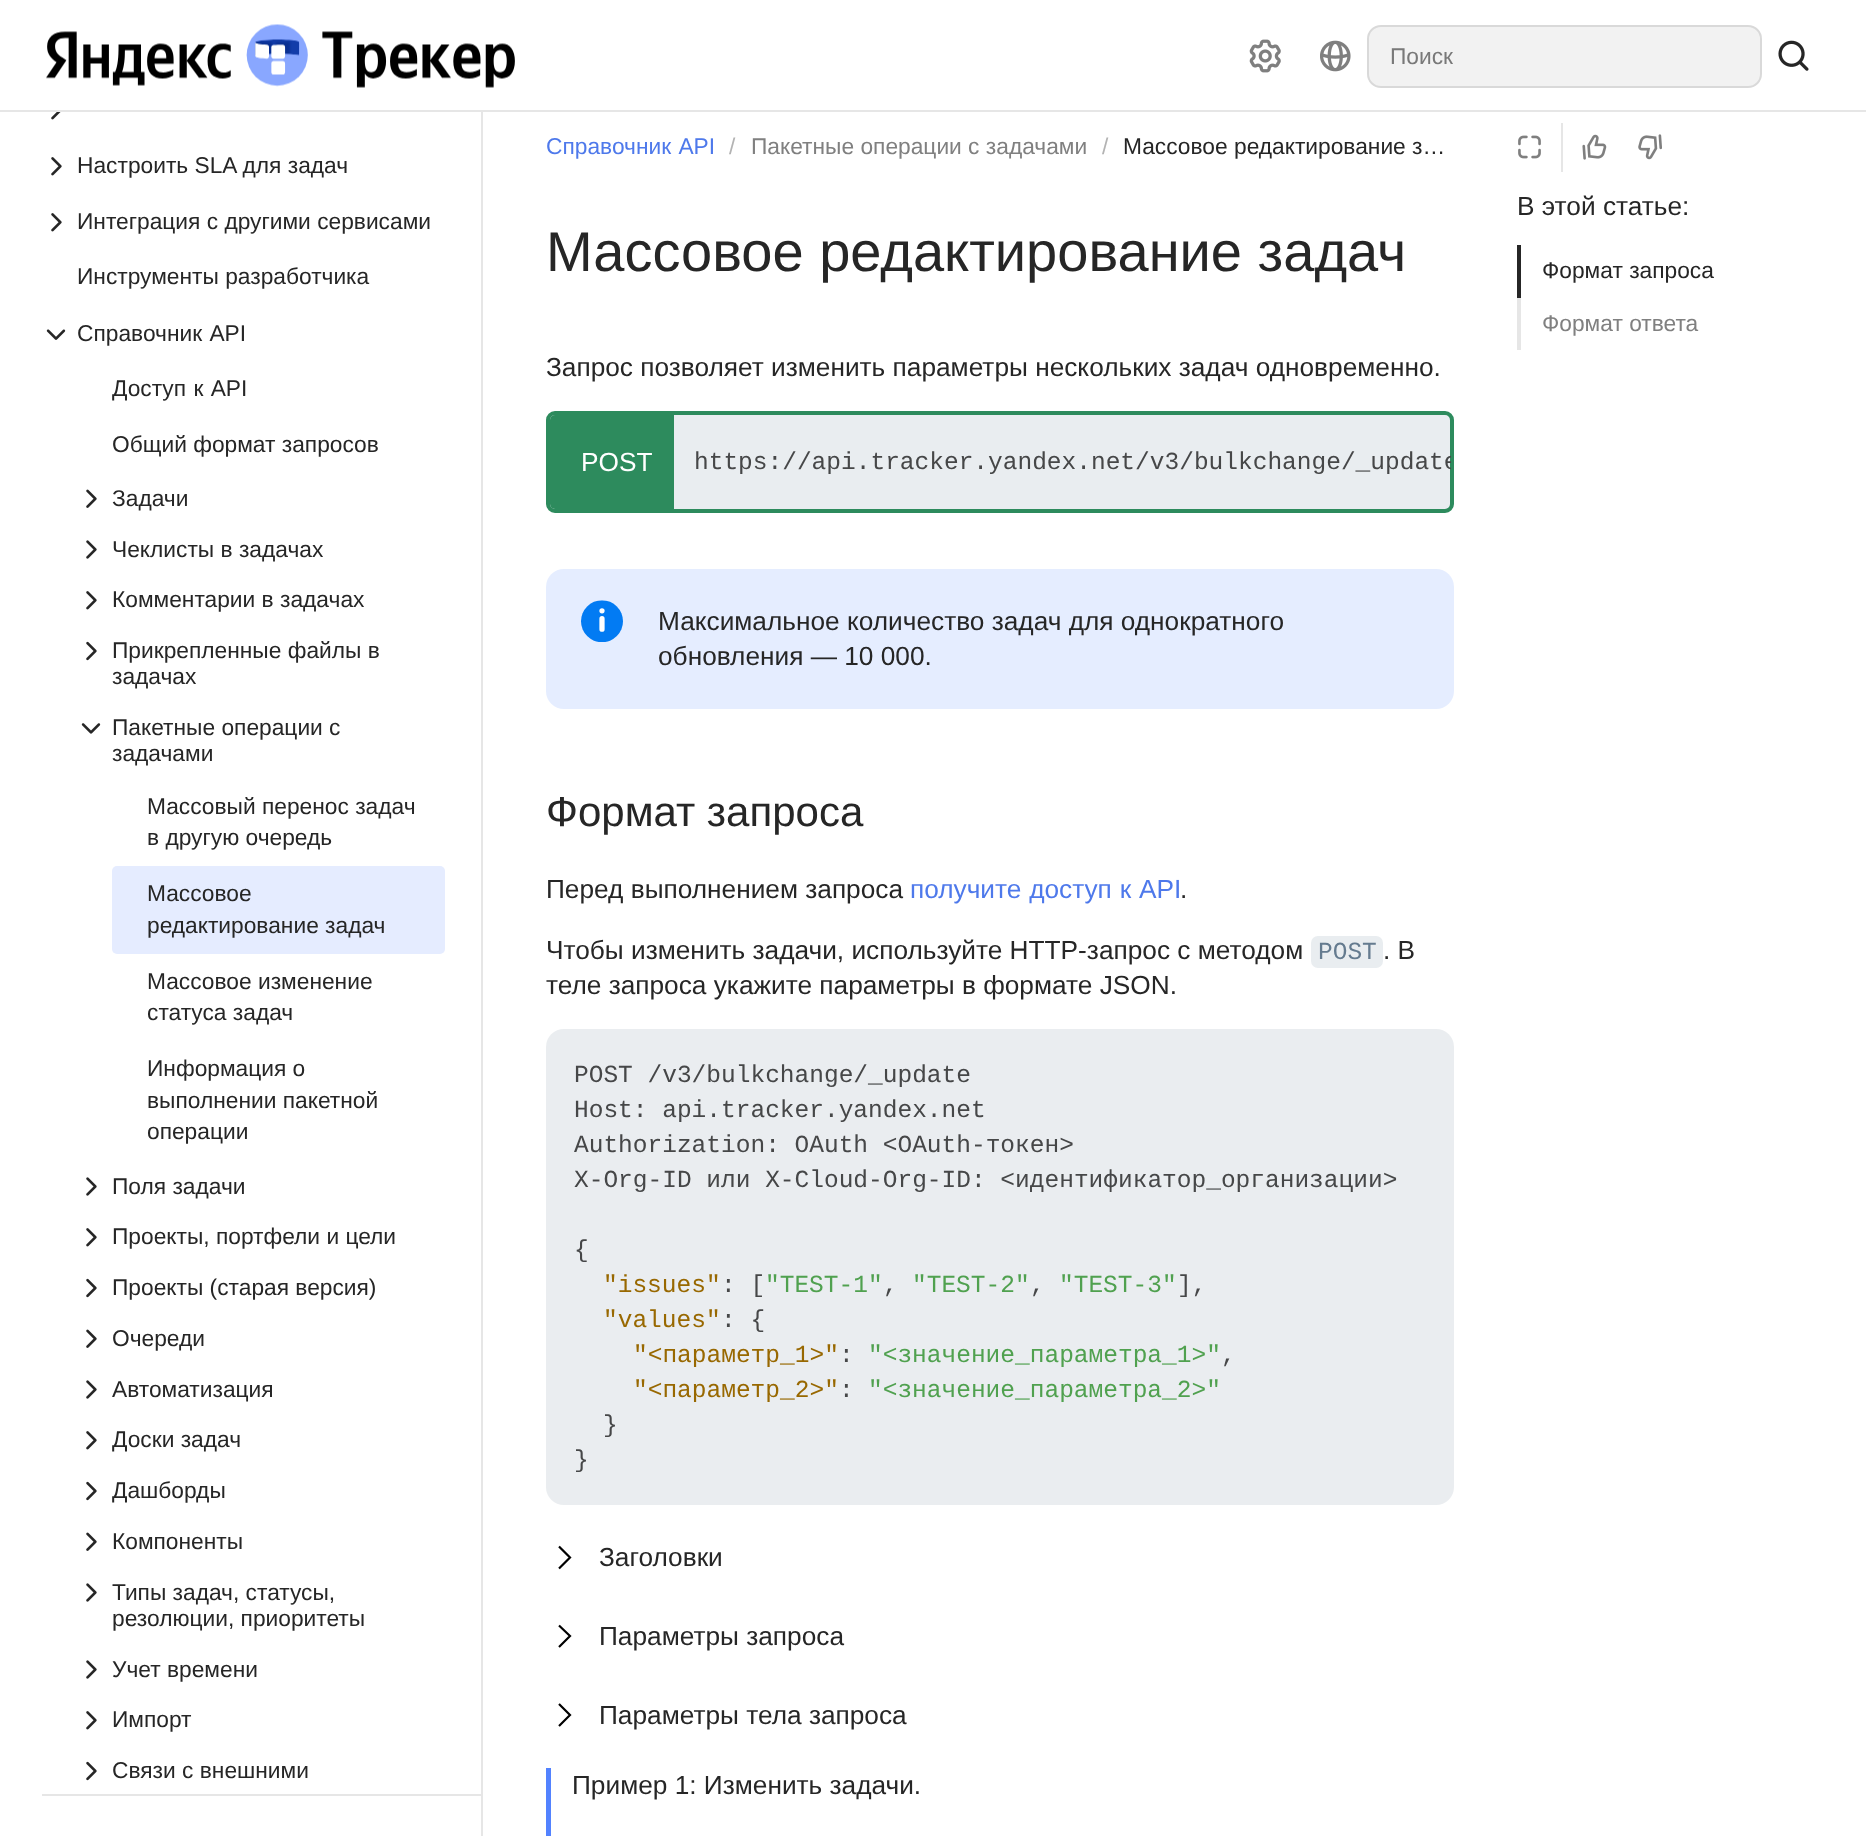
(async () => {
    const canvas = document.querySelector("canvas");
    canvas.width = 1866;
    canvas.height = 1836;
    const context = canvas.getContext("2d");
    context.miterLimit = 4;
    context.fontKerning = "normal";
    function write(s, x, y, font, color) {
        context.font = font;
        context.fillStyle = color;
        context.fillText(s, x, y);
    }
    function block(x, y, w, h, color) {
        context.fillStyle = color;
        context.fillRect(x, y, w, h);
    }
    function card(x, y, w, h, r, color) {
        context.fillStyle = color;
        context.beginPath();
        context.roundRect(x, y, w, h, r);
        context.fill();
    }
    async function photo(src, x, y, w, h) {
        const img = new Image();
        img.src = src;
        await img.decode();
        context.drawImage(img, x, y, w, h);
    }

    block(0, 0, 1866, 1836, "rgb(255, 255, 255)");
    block(0, 110, 1866, 2, "rgb(230, 230, 230)");
    await photo("media/1.png", 46, 24, 469, 64);
    await photo("media/2.png", 1249, 39, 32, 34);
    await photo("media/3.png", 1320, 40, 31, 32);
    card(1367, 25, 395, 63, 14, "rgb(242, 242, 242)");
    context.beginPath();
    context.roundRect(1368, 26, 393, 61, 13);
    context.strokeStyle = "rgba(0, 0, 0, 0.1)";
    context.lineWidth = 2;
    context.stroke();
    write("Поиск", 1390, 64, "22.75px Liberation Sans", "rgb(121, 121, 121)");
    await photo("media/4.png", 1778, 40, 31, 31);
    block(481, 112, 2, 1724, "rgb(230, 230, 230)");
    await photo("media/5.png", 51, 112, 10, 8);
    await photo("media/6.png", 51, 157, 11, 19);
    write("Настроить SLA для задач", 77, 173, "22.75px Liberation Sans", "rgb(38, 38, 38)");
    await photo("media/6.png", 51, 213, 11, 19);
    write("Интеграция с другими сервисами", 77, 229, "22.75px Liberation Sans", "rgb(38, 38, 38)");
    write("Инструменты разработчика", 77, 284, "22.75px Liberation Sans", "rgb(38, 38, 38)");
    await photo("media/7.png", 46, 329, 20, 11);
    context.wordSpacing = "1px";
    write("Справочник API", 77, 341, "22.75px Liberation Sans", "rgb(38, 38, 38)");
    write("Доступ к API", 112, 396, "22.75px Liberation Sans", "rgb(38, 38, 38)");
    context.wordSpacing = "0px";
    write("Общий формат запросов", 112, 452, "22.75px Liberation Sans", "rgb(38, 38, 38)");
    await photo("media/8.png", 86, 489, 11, 19);
    write("Задачи", 112, 506, "22.75px Liberation Sans", "rgb(38, 38, 38)");
    await photo("media/9.png", 86, 540, 11, 19);
    write("Чеклисты в задачах", 112, 557, "22.75px Liberation Sans", "rgb(38, 38, 38)");
    await photo("media/6.png", 86, 591, 11, 19);
    write("Комментарии в задачах", 112, 607, "22.75px Liberation Sans", "rgb(38, 38, 38)");
    await photo("media/10.png", 86, 641, 11, 20);
    write("Прикрепленные файлы в", 112, 658, "22.75px Liberation Sans", "rgb(38, 38, 38)");
    write("задачах", 112, 684, "22.75px Liberation Sans", "rgb(38, 38, 38)");
    await photo("media/11.png", 81, 723, 20, 11);
    write("Пакетные операции c", 112, 735, "22.75px Liberation Sans", "rgb(38, 38, 38)");
    write("задачами", 112, 761, "22.75px Liberation Sans", "rgb(38, 38, 38)");
    write("Массовый перенос задач", 147, 814, "22.75px Liberation Sans", "rgb(38, 38, 38)");
    write("в другую очередь", 147, 845, "22.75px Liberation Sans", "rgb(38, 38, 38)");
    card(112, 866, 333, 88, 5, "rgb(229, 236, 255)");
    write("Массовое", 147, 901, "22.75px Liberation Sans", "rgb(38, 38, 38)");
    write("редактирование задач", 147, 933, "22.75px Liberation Sans", "rgb(38, 38, 38)");
    write("Массовое изменение", 147, 989, "22.75px Liberation Sans", "rgb(38, 38, 38)");
    write("статуса задач", 147, 1020, "22.75px Liberation Sans", "rgb(38, 38, 38)");
    write("Информация о", 147, 1076, "22.75px Liberation Sans", "rgb(38, 38, 38)");
    write("выполнении пакетной", 147, 1108, "22.75px Liberation Sans", "rgb(38, 38, 38)");
    write("операции", 147, 1139, "22.75px Liberation Sans", "rgb(38, 38, 38)");
    await photo("media/9.png", 86, 1177, 11, 19);
    write("Поля задачи", 112, 1194, "22.75px Liberation Sans", "rgb(38, 38, 38)");
    await photo("media/6.png", 86, 1228, 11, 19);
    write("Проекты, портфели и цели", 112, 1244, "22.75px Liberation Sans", "rgb(38, 38, 38)");
    await photo("media/10.png", 86, 1278, 11, 20);
    write("Проекты (старая версия)", 112, 1295, "22.75px Liberation Sans", "rgb(38, 38, 38)");
    await photo("media/8.png", 86, 1329, 11, 19);
    write("Очереди", 112, 1346, "22.75px Liberation Sans", "rgb(38, 38, 38)");
    await photo("media/9.png", 86, 1380, 11, 19);
    write("Автоматизация", 112, 1397, "22.75px Liberation Sans", "rgb(38, 38, 38)");
    await photo("media/6.png", 86, 1431, 11, 19);
    write("Доски задач", 112, 1447, "22.75px Liberation Sans", "rgb(38, 38, 38)");
    await photo("media/10.png", 86, 1481, 11, 20);
    write("Дашборды", 112, 1498, "22.75px Liberation Sans", "rgb(38, 38, 38)");
    await photo("media/8.png", 86, 1532, 11, 19);
    write("Компоненты", 112, 1549, "22.75px Liberation Sans", "rgb(38, 38, 38)");
    await photo("media/9.png", 86, 1583, 11, 19);
    write("Типы задач, статусы,", 112, 1600, "22.75px Liberation Sans", "rgb(38, 38, 38)");
    write("резолюции, приоритеты", 112, 1626, "22.75px Liberation Sans", "rgb(38, 38, 38)");
    await photo("media/9.png", 86, 1660, 11, 19);
    write("Учет времени", 112, 1677, "22.75px Liberation Sans", "rgb(38, 38, 38)");
    await photo("media/6.png", 86, 1711, 11, 19);
    write("Импорт", 112, 1727, "22.75px Liberation Sans", "rgb(38, 38, 38)");
    await photo("media/10.png", 86, 1761, 11, 20);
    write("Связи с внешними", 112, 1778, "22.75px Liberation Sans", "rgb(38, 38, 38)");
    block(42, 1794, 439, 2, "rgb(230, 230, 230)");
    context.wordSpacing = "1px";
    write("Справочник API", 546, 154, "22.75px Liberation Sans", "rgb(78, 121, 235)");
    context.wordSpacing = "0px";
    write("/", 729, 154, "22.75px Liberation Sans", "rgb(179, 179, 179)");
    write("Пакетные операции c задачами", 751, 154, "22.75px Liberation Sans", "rgb(128, 128, 128)");
    write("/", 1102, 154, "22.75px Liberation Sans", "rgb(179, 179, 179)");
    write("Массовое редактирование з…", 1123, 154, "22.75px Liberation Sans", "rgb(38, 38, 38)");
    await photo("media/12.png", 1518, 135, 23, 24);
    block(1561, 123, 2, 49, "rgb(230, 230, 230)");
    await photo("media/13.png", 1582, 134, 25, 26);
    await photo("media/14.png", 1638, 134, 24, 26);
    write("Массовое редактирование задач", 546, 271, "56px Liberation Sans", "rgb(38, 38, 38)");
    write("Запрос позволяет изменить параметры нескольких задач одновременно.", 546, 376, "26.25px Liberation Sans", "rgb(38, 38, 38)");
    context.fillStyle = "rgb(233, 237, 240)";
    context.beginPath();
    context.roundRect(548, 413, 904, 98, 7);
    context.fill();
    context.strokeStyle = "rgb(45, 139, 93)";
    context.lineWidth = 4;
    context.stroke();
    context.fillStyle = "rgb(45, 139, 93)";
    context.beginPath();
    context.roundRect(550, 415, 124, 94, [5, 0, 0, 5]);
    context.fill();
    write("POST", 581, 471, "26.25px Liberation Sans", "rgb(255, 255, 255)");
    context.save();
    context.beginPath();
    context.roundRect(674, 429, 777, 66, 9);
    context.clip();
    write("https://api.tracker.yandex.net/v3/bulkchange/_update", 694, 469, "24.5px Liberation Mono", "rgb(70, 71, 72)");
    context.restore();
    card(546, 569, 908, 140, 18, "rgb(229, 237, 255)");
    await photo("media/15.png", 581, 600, 42, 42);
    write("Максимальное количество задач для однократного", 658, 630, "26.25px Liberation Sans", "rgb(38, 38, 38)");
    write("обновления — 10 000.", 658, 665, "26.25px Liberation Sans", "rgb(38, 38, 38)");
    write("Формат запроса", 546, 826, "42px Liberation Sans", "rgb(38, 38, 38)");
    write("Перед выполнением запроса", 546, 898, "26.25px Liberation Sans", "rgb(38, 38, 38)");
    context.wordSpacing = "0.5px";
    write("получите доступ к API", 910, 898, "26.25px Liberation Sans", "rgb(78, 121, 235)");
    context.wordSpacing = "0px";
    write(".", 1180, 898, "26.25px Liberation Sans", "rgb(38, 38, 38)");
    write("Чтобы изменить задачи, используйте HTTP-запрос с методом", 546, 959, "26.25px Liberation Sans", "rgb(38, 38, 38)");
    card(1311, 936, 72, 32, 7, "rgb(233, 237, 240)");
    write("POST", 1318, 959, "24.5px Liberation Mono", "rgb(101, 123, 143)");
    write(". В", 1383, 959, "26.25px Liberation Sans", "rgb(38, 38, 38)");
    write("теле запроса укажите параметры в формате JSON.", 546, 994, "26.25px Liberation Sans", "rgb(38, 38, 38)");
    card(546, 1029, 908, 476, 18, "rgb(234, 237, 240)");
    write("POST /v3/bulkchange/_update", 574, 1082, "24.5px Liberation Mono", "rgb(70, 71, 72)");
    write("Host: api.tracker.yandex.net", 574, 1117, "24.5px Liberation Mono", "rgb(70, 71, 72)");
    write("Authorization: OAuth <OAuth-токен>", 574, 1152, "24.5px Liberation Mono", "rgb(70, 71, 72)");
    write("X-Org-ID или X-Cloud-Org-ID: <идентификатор_организации>", 574, 1187, "24.5px Liberation Mono", "rgb(70, 71, 72)");
    write("{", 574, 1257, "24.5px Liberation Mono", "rgb(70, 71, 72)");
    write("\"issues\"", 603, 1292, "24.5px Liberation Mono", "rgb(152, 104, 1)");
    write(": [", 721, 1292, "24.5px Liberation Mono", "rgb(70, 71, 72)");
    write("\"TEST-1\"", 765, 1292, "24.5px Liberation Mono", "rgb(80, 161, 79)");
    write(",", 883, 1292, "24.5px Liberation Mono", "rgb(70, 71, 72)");
    write("\"TEST-2\"", 912, 1292, "24.5px Liberation Mono", "rgb(80, 161, 79)");
    write(",", 1030, 1292, "24.5px Liberation Mono", "rgb(70, 71, 72)");
    write("\"TEST-3\"", 1059, 1292, "24.5px Liberation Mono", "rgb(80, 161, 79)");
    write("],", 1177, 1292, "24.5px Liberation Mono", "rgb(70, 71, 72)");
    write("\"values\"", 603, 1327, "24.5px Liberation Mono", "rgb(152, 104, 1)");
    write(": {", 721, 1327, "24.5px Liberation Mono", "rgb(70, 71, 72)");
    write("\"<параметр_1>\"", 633, 1362, "24.5px Liberation Mono", "rgb(152, 104, 1)");
    write(":", 839, 1362, "24.5px Liberation Mono", "rgb(70, 71, 72)");
    write("\"<значение_параметра_1>\"", 868, 1362, "24.5px Liberation Mono", "rgb(80, 161, 79)");
    write(",", 1221, 1362, "24.5px Liberation Mono", "rgb(70, 71, 72)");
    write("\"<параметр_2>\"", 633, 1397, "24.5px Liberation Mono", "rgb(152, 104, 1)");
    write(":", 839, 1397, "24.5px Liberation Mono", "rgb(70, 71, 72)");
    write("\"<значение_параметра_2>\"", 868, 1397, "24.5px Liberation Mono", "rgb(80, 161, 79)");
    write("}", 603, 1432, "24.5px Liberation Mono", "rgb(70, 71, 72)");
    write("}", 574, 1467, "24.5px Liberation Mono", "rgb(70, 71, 72)");
    context.beginPath();
    context.moveTo(559, 1568.5);
    context.lineTo(570, 1557.5);
    context.lineTo(559, 1546.5);
    context.strokeStyle = "rgb(0, 0, 0)";
    context.lineWidth = 2.2;
    context.stroke();
    write("Заголовки", 599, 1566, "26.25px Liberation Sans", "rgb(38, 38, 38)");
    context.beginPath();
    context.moveTo(559, 1647);
    context.lineTo(570, 1636);
    context.lineTo(559, 1625.5);
    context.stroke();
    write("Параметры запроса", 599, 1645, "26.25px Liberation Sans", "rgb(38, 38, 38)");
    context.beginPath();
    context.moveTo(559, 1726);
    context.lineTo(570, 1715);
    context.lineTo(559, 1704);
    context.stroke();
    write("Параметры тела запроса", 599, 1724, "26.25px Liberation Sans", "rgb(38, 38, 38)");
    block(546, 1768, 5, 68, "rgb(82, 130, 255)");
    write("Пример 1: Изменить задачи.", 572, 1794, "26.25px Liberation Sans", "rgb(38, 38, 38)");
    write("В этой статье:", 1517, 215, "26.25px Liberation Sans", "rgb(38, 38, 38)");
    block(1517, 245, 4, 53, "rgb(38, 38, 38)");
    write("Формат запроса", 1542, 278, "22.75px Liberation Sans", "rgb(38, 38, 38)");
    block(1517, 298, 4, 52, "rgb(230, 230, 230)");
    write("Формат ответа", 1542, 331, "22.75px Liberation Sans", "rgb(128, 128, 128)");
})();
